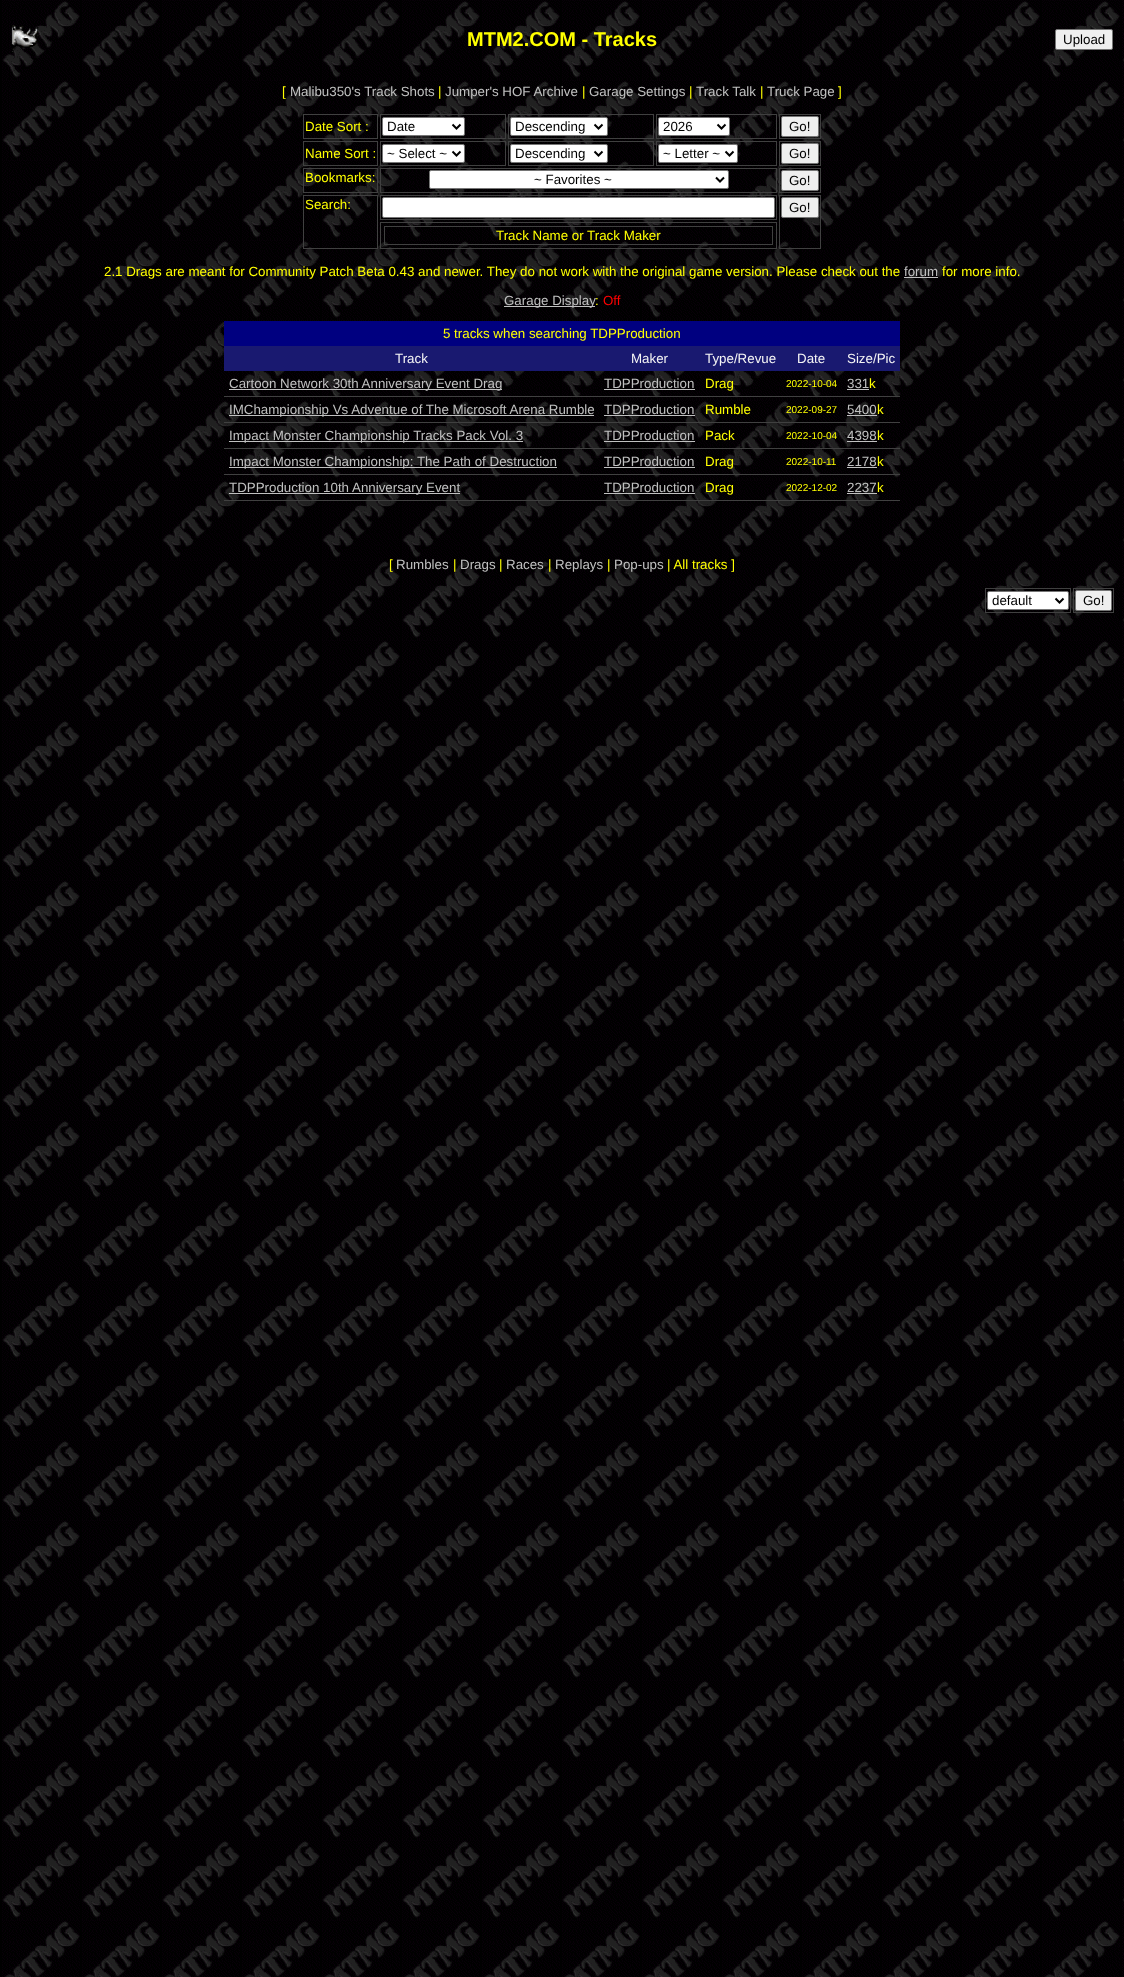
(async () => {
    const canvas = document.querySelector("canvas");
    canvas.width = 1124;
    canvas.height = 1977;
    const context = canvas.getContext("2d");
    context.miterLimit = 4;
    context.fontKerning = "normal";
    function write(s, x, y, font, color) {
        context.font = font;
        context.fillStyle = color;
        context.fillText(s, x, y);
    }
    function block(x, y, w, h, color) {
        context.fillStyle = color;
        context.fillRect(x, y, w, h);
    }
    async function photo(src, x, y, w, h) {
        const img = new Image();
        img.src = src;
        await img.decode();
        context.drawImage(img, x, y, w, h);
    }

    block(0, 0, 1124, 1977, "rgb(0, 0, 0)");
    await photo("media/1.png", 2, 0, 1122, 1977);
    await photo("media/2.png", 11, 25, 28, 27);
    write("MTM2.COM - Tracks", 467, 46, "bold 20px Liberation Sans", "rgb(255, 255, 0)");
    context.fillStyle = "rgb(239, 239, 239)";
    context.beginPath();
    context.roundRect(1055.5, 29.5, 57, 20, 1.5);
    context.fill();
    context.strokeStyle = "rgb(118, 118, 118)";
    context.stroke();
    write("Upload", 1063, 44, "13.33px Liberation Sans", "rgb(0, 0, 0)");
    write("[", 282, 96, "13.33px Liberation Sans", "rgb(255, 255, 0)");
    write("Malibu350's Track Shots", 290, 96, "13.33px Liberation Sans", "rgb(192, 192, 192)");
    write("|", 438, 96, "13.33px Liberation Sans", "rgb(255, 255, 0)");
    write("Jumper's HOF Archive", 445, 96, "13.33px Liberation Sans", "rgb(192, 192, 192)");
    write("|", 582, 96, "13.33px Liberation Sans", "rgb(255, 255, 0)");
    write("Garage Settings", 589, 96, "13.33px Liberation Sans", "rgb(192, 192, 192)");
    write("|", 689, 96, "13.33px Liberation Sans", "rgb(255, 255, 0)");
    write("Track Talk", 696, 96, "13.33px Liberation Sans", "rgb(192, 192, 192)");
    write("|", 760, 96, "13.33px Liberation Sans", "rgb(255, 255, 0)");
    write("Truck Page", 767, 96, "13.33px Liberation Sans", "rgb(192, 192, 192)");
    write("]", 838, 96, "13.33px Liberation Sans", "rgb(255, 255, 0)");
    context.strokeStyle = "rgb(64, 64, 64)";
    context.strokeRect(303.5, 114.5, 74, 24);
    write("Date Sort :", 305, 131, "13.33px Liberation Sans", "rgb(255, 255, 0)");
    context.strokeRect(380.5, 114.5, 125, 24);
    context.fillStyle = "rgb(255, 255, 255)";
    context.beginPath();
    context.roundRect(382.5, 117.5, 82, 18, 1.5);
    context.fill();
    context.strokeStyle = "rgb(118, 118, 118)";
    context.stroke();
    context.beginPath();
    context.moveTo(452.5, 124.5);
    context.lineTo(456.5, 128.5);
    context.lineTo(460.5, 124.5);
    context.strokeStyle = "rgb(0, 0, 0)";
    context.lineWidth = 2;
    context.stroke();
    write("Date", 387, 131, "13.33px Liberation Sans", "rgb(0, 0, 0)");
    context.strokeStyle = "rgb(64, 64, 64)";
    context.lineWidth = 1;
    context.strokeRect(508.5, 114.5, 145, 24);
    context.fillStyle = "rgb(255, 255, 255)";
    context.beginPath();
    context.roundRect(510.5, 117.5, 97, 18, 1.5);
    context.fill();
    context.strokeStyle = "rgb(118, 118, 118)";
    context.stroke();
    context.beginPath();
    context.moveTo(594.5, 124.5);
    context.lineTo(598.5, 128.5);
    context.lineTo(602.5, 124.5);
    context.strokeStyle = "rgb(0, 0, 0)";
    context.lineWidth = 2;
    context.stroke();
    write("Descending", 515, 131, "13.33px Liberation Sans", "rgb(0, 0, 0)");
    context.strokeStyle = "rgb(64, 64, 64)";
    context.lineWidth = 1;
    context.strokeRect(656.5, 114.5, 120, 24);
    context.fillStyle = "rgb(255, 255, 255)";
    context.beginPath();
    context.roundRect(658.5, 117.5, 71, 18, 1.5);
    context.fill();
    context.strokeStyle = "rgb(118, 118, 118)";
    context.stroke();
    context.beginPath();
    context.moveTo(717.5, 124.5);
    context.lineTo(721.5, 128.5);
    context.lineTo(725.5, 124.5);
    context.strokeStyle = "rgb(0, 0, 0)";
    context.lineWidth = 2;
    context.stroke();
    write("2026", 663, 131, "13.33px Liberation Sans", "rgb(0, 0, 0)");
    context.strokeStyle = "rgb(64, 64, 64)";
    context.lineWidth = 1;
    context.strokeRect(779.5, 114.5, 41, 24);
    context.fillStyle = "rgb(239, 239, 239)";
    context.beginPath();
    context.roundRect(781.5, 116.5, 37, 20, 1.5);
    context.fill();
    context.strokeStyle = "rgb(118, 118, 118)";
    context.stroke();
    write("Go!", 789, 131, "13.33px Liberation Sans", "rgb(0, 0, 0)");
    context.strokeStyle = "rgb(64, 64, 64)";
    context.strokeRect(303.5, 141.5, 74, 24);
    write("Name Sort :", 305, 158, "13.33px Liberation Sans", "rgb(255, 255, 0)");
    context.strokeRect(380.5, 141.5, 125, 24);
    context.fillStyle = "rgb(255, 255, 255)";
    context.beginPath();
    context.roundRect(382.5, 144.5, 82, 18, 1.5);
    context.fill();
    context.strokeStyle = "rgb(118, 118, 118)";
    context.stroke();
    context.beginPath();
    context.moveTo(452.5, 151.5);
    context.lineTo(456.5, 155.5);
    context.lineTo(460.5, 151.5);
    context.strokeStyle = "rgb(0, 0, 0)";
    context.lineWidth = 2;
    context.stroke();
    write("~ Select ~", 387, 158, "13.33px Liberation Sans", "rgb(0, 0, 0)");
    context.strokeStyle = "rgb(64, 64, 64)";
    context.lineWidth = 1;
    context.strokeRect(508.5, 141.5, 145, 24);
    context.fillStyle = "rgb(255, 255, 255)";
    context.beginPath();
    context.roundRect(510.5, 144.5, 97, 18, 1.5);
    context.fill();
    context.strokeStyle = "rgb(118, 118, 118)";
    context.stroke();
    context.beginPath();
    context.moveTo(594.5, 151.5);
    context.lineTo(598.5, 155.5);
    context.lineTo(602.5, 151.5);
    context.strokeStyle = "rgb(0, 0, 0)";
    context.lineWidth = 2;
    context.stroke();
    write("Descending", 515, 158, "13.33px Liberation Sans", "rgb(0, 0, 0)");
    context.strokeStyle = "rgb(64, 64, 64)";
    context.lineWidth = 1;
    context.strokeRect(656.5, 141.5, 120, 24);
    context.fillStyle = "rgb(255, 255, 255)";
    context.beginPath();
    context.roundRect(658.5, 144.5, 79, 18, 1.5);
    context.fill();
    context.strokeStyle = "rgb(118, 118, 118)";
    context.stroke();
    context.beginPath();
    context.moveTo(725.5, 151.5);
    context.lineTo(729.5, 155.5);
    context.lineTo(733.5, 151.5);
    context.strokeStyle = "rgb(0, 0, 0)";
    context.lineWidth = 2;
    context.stroke();
    write("~ Letter ~", 663, 158, "13.33px Liberation Sans", "rgb(0, 0, 0)");
    context.strokeStyle = "rgb(64, 64, 64)";
    context.lineWidth = 1;
    context.strokeRect(779.5, 141.5, 41, 24);
    context.fillStyle = "rgb(239, 239, 239)";
    context.beginPath();
    context.roundRect(781.5, 143.5, 37, 20, 1.5);
    context.fill();
    context.strokeStyle = "rgb(118, 118, 118)";
    context.stroke();
    write("Go!", 789, 158, "13.33px Liberation Sans", "rgb(0, 0, 0)");
    context.strokeStyle = "rgb(64, 64, 64)";
    context.strokeRect(303.5, 168.5, 74, 24);
    write("Bookmarks:", 305, 182, "13.33px Liberation Sans", "rgb(255, 255, 0)");
    context.strokeRect(380.5, 168.5, 396, 24);
    context.fillStyle = "rgb(255, 255, 255)";
    context.beginPath();
    context.roundRect(429.5, 170.5, 299, 18, 1.5);
    context.fill();
    context.strokeStyle = "rgb(118, 118, 118)";
    context.stroke();
    context.beginPath();
    context.moveTo(716, 177.5);
    context.lineTo(720, 181.5);
    context.lineTo(724, 177.5);
    context.strokeStyle = "rgb(0, 0, 0)";
    context.lineWidth = 2;
    context.stroke();
    write("~ Favorites ~", 534, 184, "13.33px Liberation Sans", "rgb(0, 0, 0)");
    context.strokeStyle = "rgb(64, 64, 64)";
    context.lineWidth = 1;
    context.strokeRect(779.5, 168.5, 41, 24);
    context.fillStyle = "rgb(239, 239, 239)";
    context.beginPath();
    context.roundRect(781.5, 170.5, 37, 20, 1.5);
    context.fill();
    context.strokeStyle = "rgb(118, 118, 118)";
    context.stroke();
    write("Go!", 789, 185, "13.33px Liberation Sans", "rgb(0, 0, 0)");
    context.strokeStyle = "rgb(64, 64, 64)";
    context.strokeRect(303.5, 195.5, 74, 53);
    write("Search:", 305, 209, "13.33px Liberation Sans", "rgb(255, 255, 0)");
    context.strokeRect(380.5, 195.5, 396, 24);
    context.fillStyle = "rgb(255, 255, 255)";
    context.beginPath();
    context.roundRect(382.5, 197.5, 392, 20, 1.5);
    context.fill();
    context.strokeStyle = "rgb(118, 118, 118)";
    context.stroke();
    context.strokeStyle = "rgb(64, 64, 64)";
    context.strokeRect(779.5, 195.5, 41, 53);
    context.fillStyle = "rgb(239, 239, 239)";
    context.beginPath();
    context.roundRect(781.5, 197.5, 37, 20, 1.5);
    context.fill();
    context.strokeStyle = "rgb(118, 118, 118)";
    context.stroke();
    write("Go!", 789, 212, "13.33px Liberation Sans", "rgb(0, 0, 0)");
    context.strokeStyle = "rgb(64, 64, 64)";
    context.strokeRect(380.5, 222.5, 396, 26);
    context.strokeRect(384.5, 226.5, 388, 18);
    write("Track Name or Track Maker", 496, 240, "13.33px Liberation Sans", "rgb(255, 255, 0)");
    write("2.1 Drags are meant for Community Patch Beta 0.43 and newer. They do not work with the original game version. Please check out the", 104, 276, "13.33px Liberation Sans", "rgb(255, 255, 0)");
    write("forum", 904, 276, "13.33px Liberation Sans", "rgb(192, 192, 192)");
    block(904, 277, 34, 1, "rgb(192, 192, 192)");
    write("for more info.", 942, 276, "13.33px Liberation Sans", "rgb(255, 255, 0)");
    block(504, 306, 91, 1, "rgb(192, 192, 192)");
    write("Garage Display", 504, 305, "13.33px Liberation Sans", "rgb(192, 192, 192)");
    write(":", 595, 305, "13.33px Liberation Sans", "rgb(255, 255, 0)");
    write("Off", 603, 305, "13.33px Liberation Sans", "rgb(255, 0, 0)");
    block(224, 321, 676, 25, "rgb(0, 0, 128)");
    write("5 tracks when searching TDPProduction", 443, 338, "13.33px Liberation Sans", "rgb(255, 255, 0)");
    block(224, 346, 676, 25, "rgb(25, 25, 112)");
    write("Track", 395, 363, "13.33px Liberation Sans", "rgb(245, 245, 245)");
    write("Maker", 631, 363, "13.33px Liberation Sans", "rgb(245, 245, 245)");
    write("Type/Revue", 705, 363, "13.33px Liberation Sans", "rgb(245, 245, 245)");
    write("Date", 797, 363, "13.33px Liberation Sans", "rgb(245, 245, 245)");
    write("Size/Pic", 847, 363, "13.33px Liberation Sans", "rgb(245, 245, 245)");
    block(224, 396, 676, 1, "rgb(64, 64, 64)");
    block(229, 389, 273, 1, "rgb(192, 192, 192)");
    write("Cartoon Network 30th Anniversary Event Drag", 229, 388, "13.33px Liberation Sans", "rgb(192, 192, 192)");
    write("TDPProduction", 604, 388, "13.33px Liberation Sans", "rgb(192, 192, 192)");
    block(604, 389, 91, 1, "rgb(192, 192, 192)");
    write("Drag", 705, 388, "13.33px Liberation Sans", "rgb(255, 255, 0)");
    write("2022-10-04", 786, 387, "10px Liberation Sans", "rgb(255, 255, 0)");
    write("331", 847, 388, "13.33px Liberation Sans", "rgb(192, 192, 192)");
    block(847, 389, 22, 1, "rgb(192, 192, 192)");
    write("k", 869, 388, "13.33px Liberation Sans", "rgb(255, 255, 0)");
    block(224, 422, 676, 1, "rgb(64, 64, 64)");
    block(229, 415, 365, 1, "rgb(192, 192, 192)");
    write("IMChampionship Vs Adventue of The Microsoft Arena Rumble", 229, 414, "13.33px Liberation Sans", "rgb(192, 192, 192)");
    write("TDPProduction", 604, 414, "13.33px Liberation Sans", "rgb(192, 192, 192)");
    block(604, 415, 91, 1, "rgb(192, 192, 192)");
    write("Rumble", 705, 414, "13.33px Liberation Sans", "rgb(255, 255, 0)");
    write("2022-09-27", 786, 413, "10px Liberation Sans", "rgb(255, 255, 0)");
    write("5400", 847, 414, "13.33px Liberation Sans", "rgb(192, 192, 192)");
    block(847, 415, 30, 1, "rgb(192, 192, 192)");
    write("k", 877, 414, "13.33px Liberation Sans", "rgb(255, 255, 0)");
    block(224, 448, 676, 1, "rgb(64, 64, 64)");
    block(229, 441, 294, 1, "rgb(192, 192, 192)");
    write("Impact Monster Championship Tracks Pack Vol. 3", 229, 440, "13.33px Liberation Sans", "rgb(192, 192, 192)");
    write("TDPProduction", 604, 440, "13.33px Liberation Sans", "rgb(192, 192, 192)");
    block(604, 441, 91, 1, "rgb(192, 192, 192)");
    write("Pack", 705, 440, "13.33px Liberation Sans", "rgb(255, 255, 0)");
    write("2022-10-04", 786, 439, "10px Liberation Sans", "rgb(255, 255, 0)");
    write("4398", 847, 440, "13.33px Liberation Sans", "rgb(192, 192, 192)");
    block(847, 441, 30, 1, "rgb(192, 192, 192)");
    write("k", 877, 440, "13.33px Liberation Sans", "rgb(255, 255, 0)");
    block(224, 474, 676, 1, "rgb(64, 64, 64)");
    block(229, 467, 328, 1, "rgb(192, 192, 192)");
    write("Impact Monster Championship: The Path of Destruction", 229, 466, "13.33px Liberation Sans", "rgb(192, 192, 192)");
    write("TDPProduction", 604, 466, "13.33px Liberation Sans", "rgb(192, 192, 192)");
    block(604, 467, 91, 1, "rgb(192, 192, 192)");
    write("Drag", 705, 466, "13.33px Liberation Sans", "rgb(255, 255, 0)");
    write("2022-10-11", 786, 465, "10px Liberation Sans", "rgb(255, 255, 0)");
    write("2178", 847, 466, "13.33px Liberation Sans", "rgb(192, 192, 192)");
    block(847, 467, 30, 1, "rgb(192, 192, 192)");
    write("k", 877, 466, "13.33px Liberation Sans", "rgb(255, 255, 0)");
    block(224, 500, 676, 1, "rgb(64, 64, 64)");
    block(229, 493, 231, 1, "rgb(192, 192, 192)");
    write("TDPProduction 10th Anniversary Event", 229, 492, "13.33px Liberation Sans", "rgb(192, 192, 192)");
    write("TDPProduction", 604, 492, "13.33px Liberation Sans", "rgb(192, 192, 192)");
    block(604, 493, 91, 1, "rgb(192, 192, 192)");
    write("Drag", 705, 492, "13.33px Liberation Sans", "rgb(255, 255, 0)");
    write("2022-12-02", 786, 491, "10px Liberation Sans", "rgb(255, 255, 0)");
    write("2237", 847, 492, "13.33px Liberation Sans", "rgb(192, 192, 192)");
    block(847, 493, 30, 1, "rgb(192, 192, 192)");
    write("k", 877, 492, "13.33px Liberation Sans", "rgb(255, 255, 0)");
    write("[", 389, 569, "13.33px Liberation Sans", "rgb(255, 255, 0)");
    write("Rumbles", 396, 569, "13.33px Liberation Sans", "rgb(192, 192, 192)");
    write("|", 453, 569, "13.33px Liberation Sans", "rgb(255, 255, 0)");
    write("Drags", 460, 569, "13.33px Liberation Sans", "rgb(192, 192, 192)");
    write("|", 499, 569, "13.33px Liberation Sans", "rgb(255, 255, 0)");
    write("Races", 506, 569, "13.33px Liberation Sans", "rgb(192, 192, 192)");
    write("|", 548, 569, "13.33px Liberation Sans", "rgb(255, 255, 0)");
    write("Replays", 555, 569, "13.33px Liberation Sans", "rgb(192, 192, 192)");
    write("|", 607, 569, "13.33px Liberation Sans", "rgb(255, 255, 0)");
    write("Pop-ups", 614, 569, "13.33px Liberation Sans", "rgb(192, 192, 192)");
    write("| All tracks ]", 667, 569, "13.33px Liberation Sans", "rgb(255, 255, 0)");
    context.strokeRect(985.5, 588.5, 85, 24);
    context.fillStyle = "rgb(255, 255, 255)";
    context.beginPath();
    context.roundRect(987.5, 591.5, 81, 18, 1.5);
    context.fill();
    context.strokeStyle = "rgb(118, 118, 118)";
    context.stroke();
    context.beginPath();
    context.moveTo(1055.5, 598.5);
    context.lineTo(1059.5, 602.5);
    context.lineTo(1063.5, 598.5);
    context.strokeStyle = "rgb(0, 0, 0)";
    context.lineWidth = 2;
    context.stroke();
    write("default", 992, 605, "13.33px Liberation Sans", "rgb(0, 0, 0)");
    context.strokeStyle = "rgb(64, 64, 64)";
    context.lineWidth = 1;
    context.strokeRect(1073.5, 588.5, 40, 24);
    context.fillStyle = "rgb(239, 239, 239)";
    context.beginPath();
    context.roundRect(1075.5, 590.5, 36, 20, 1.5);
    context.fill();
    context.strokeStyle = "rgb(118, 118, 118)";
    context.stroke();
    write("Go!", 1083, 605, "13.33px Liberation Sans", "rgb(0, 0, 0)");
})();
